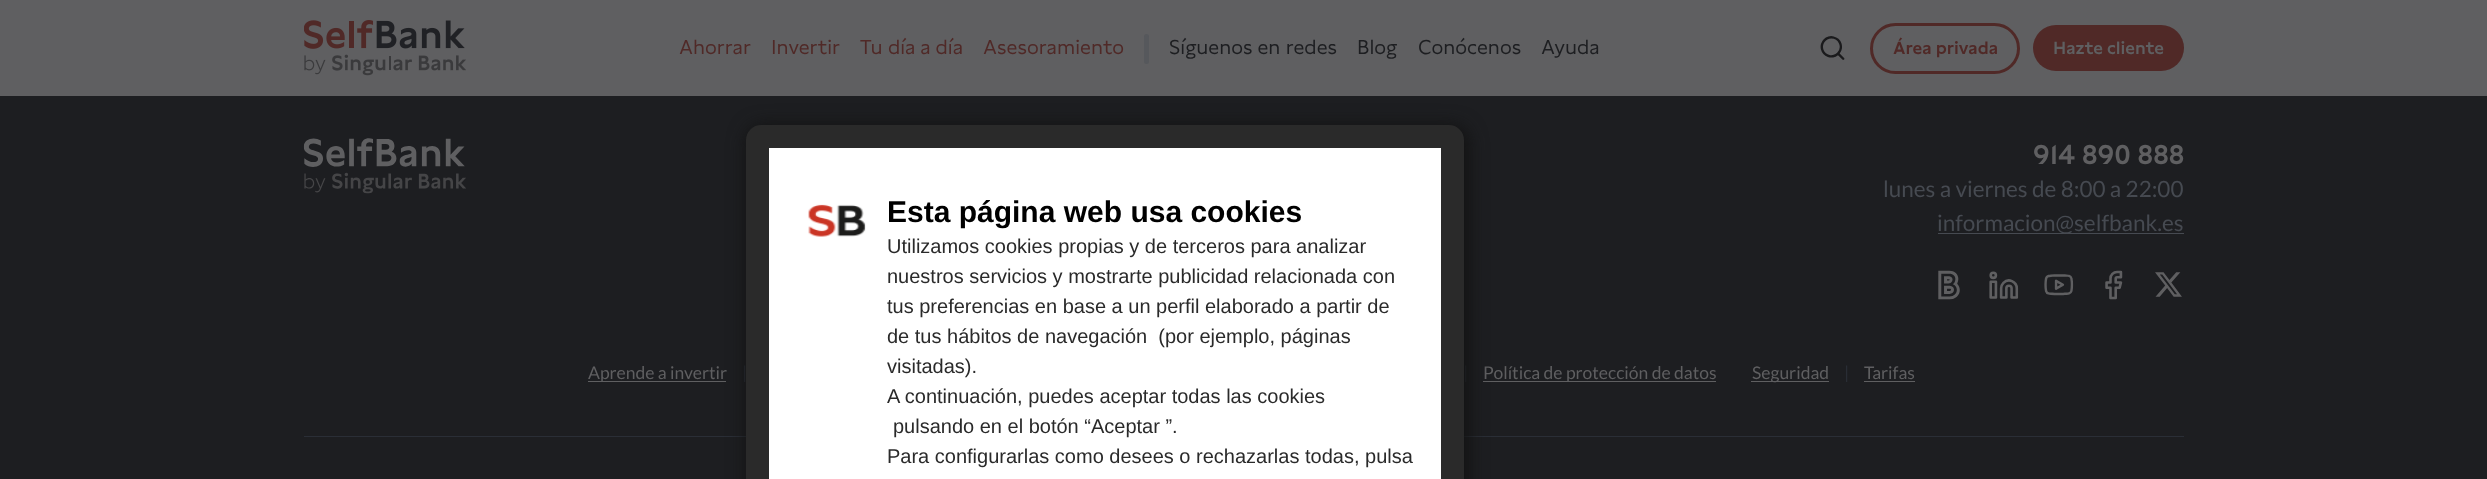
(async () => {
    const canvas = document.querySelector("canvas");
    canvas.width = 2487;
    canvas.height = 479;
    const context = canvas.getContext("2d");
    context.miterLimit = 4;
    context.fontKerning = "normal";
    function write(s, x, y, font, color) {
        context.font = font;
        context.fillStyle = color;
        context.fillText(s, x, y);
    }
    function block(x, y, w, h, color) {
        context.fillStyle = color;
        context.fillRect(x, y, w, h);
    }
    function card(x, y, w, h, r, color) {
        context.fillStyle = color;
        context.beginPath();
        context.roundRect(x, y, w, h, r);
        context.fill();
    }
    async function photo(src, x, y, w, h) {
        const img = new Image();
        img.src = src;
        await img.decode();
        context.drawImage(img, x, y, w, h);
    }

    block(0, 0, 2487, 479, "rgb(29, 30, 33)");
    block(0, 0, 2487, 96, "rgb(95, 95, 97)");
    await photo("media/1.png", 304, 20, 162, 56);
    write("Ahorrar", 679, 54, "20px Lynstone", "rgb(80, 41, 39)");
    write("Invertir", 771, 54, "20px Lynstone", "rgb(80, 41, 39)");
    write("Tu día a día", 860, 54, "20px Lynstone", "rgb(80, 41, 39)");
    write("Asesoramiento", 983, 54, "20px Lynstone", "rgb(80, 41, 39)");
    card(1144, 34, 5, 30, 2.5, "rgb(86, 88, 92)");
    write("Síguenos en redes", 1169, 54, "20px Lynstone", "rgb(29, 30, 33)");
    write("Blog", 1357, 54, "20px Lynstone", "rgb(29, 30, 33)");
    write("Conócenos", 1418, 54, "20px Lynstone", "rgb(29, 30, 33)");
    write("Ayuda", 1541, 54, "20px Lynstone", "rgb(29, 30, 33)");
    await photo("media/2.png", 1820, 36, 25, 24);
    context.beginPath();
    context.roundRect(1871.5, 24.5, 147, 48, 24);
    context.strokeStyle = "rgb(80, 41, 39)";
    context.lineWidth = 3;
    context.stroke();
    write("Área privada", 1893, 54, "600 17.5px Lynstone", "rgb(80, 41, 39)");
    card(2033, 25, 151, 46, 23, "rgb(80, 41, 39)");
    write("Hazte cliente", 2053, 54, "600 17.5px Lynstone", "rgb(95, 95, 97)");
    await photo("media/3.png", 303, 138, 163, 56);
    write("914 890 888", 2033, 164, "600 27.5px Lynstone", "rgb(95, 95, 97)");
    write("lunes a viernes de 8:00 a 22:00", 1883, 197, "22.5px Lato", "rgb(70, 74, 81)");
    block(1938, 233, 246, 1, "rgb(70, 74, 81)");
    write("informacion@selfbank.es", 1937, 231, "22.5px Lato", "rgb(70, 74, 81)");
    await photo("media/4.png", 1938, 270, 22, 30);
    await photo("media/5.png", 1989, 271, 30, 28);
    await photo("media/6.png", 2044, 274, 30, 22);
    await photo("media/7.png", 2105, 270, 18, 30);
    await photo("media/8.png", 2155, 272, 27, 25);
    block(588, 381, 138, 1, "rgb(95, 95, 97)");
    write("Aprende a invertir", 588, 379, "17.5px Lato", "rgb(95, 95, 97)");
    write("|", 742, 379, "17.5px Lato", "rgb(42, 46, 54)");
    write("|", 1463, 379, "17.5px Lato", "rgb(42, 46, 54)");
    block(1483, 381, 233, 1, "rgb(95, 95, 97)");
    write("Política de protección de datos", 1483, 379, "17.5px Lato", "rgb(95, 95, 97)");
    block(1751, 381, 78, 1, "rgb(95, 95, 97)");
    write("Seguridad", 1752, 379, "17.5px Lato", "rgb(95, 95, 97)");
    write("|", 1844, 379, "17.5px Lato", "rgb(42, 46, 54)");
    write("Tarifas", 1864, 379, "17.5px Lato", "rgb(95, 95, 97)");
    block(1864, 381, 51, 1, "rgb(95, 95, 97)");
    block(304, 436, 1880, 1, "rgb(42, 46, 54)");
    context.fillStyle = "rgb(18, 18, 18)";
    context.filter = "blur(9px)";
    context.beginPath();
    context.roundRect(746, 125, 723, 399, 18);
    context.fill();
    context.filter = "none";
    context.fillStyle = "rgb(255, 255, 255)";
    context.beginPath();
    context.roundRect(757.5, 136.5, 695, 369, 3.5);
    context.fill();
    context.strokeStyle = "rgb(42, 42, 42)";
    context.lineWidth = 23;
    context.stroke();
    await photo("media/9.png", 808, 204, 58, 33);
    write("Esta página web usa cookies", 887, 222, "bold 30px Liberation Sans", "rgb(0, 0, 0)");
    write("Utilizamos cookies propias y de terceros para analizar", 887, 253, "20px Liberation Sans", "rgb(42, 42, 42)");
    write("nuestros servicios y mostrarte publicidad relacionada con", 887, 283, "20px Liberation Sans", "rgb(42, 42, 42)");
    write("tus preferencias en base a un perfil elaborado a partir de", 887, 313, "20px Liberation Sans", "rgb(42, 42, 42)");
    write("de tus hábitos de navegación  (por ejemplo, páginas", 887, 343, "20px Liberation Sans", "rgb(42, 42, 42)");
    write("visitadas).", 887, 373, "20px Liberation Sans", "rgb(42, 42, 42)");
    write("A continuación, puedes aceptar todas las cookies", 887, 403, "20px Liberation Sans", "rgb(42, 42, 42)");
    write("pulsando en el botón “Aceptar ”.", 893, 433, "20px Liberation Sans", "rgb(42, 42, 42)");
    write("Para configurarlas como desees o rechazarlas todas, pulsa", 887, 463, "20px Liberation Sans", "rgb(42, 42, 42)");
})();
